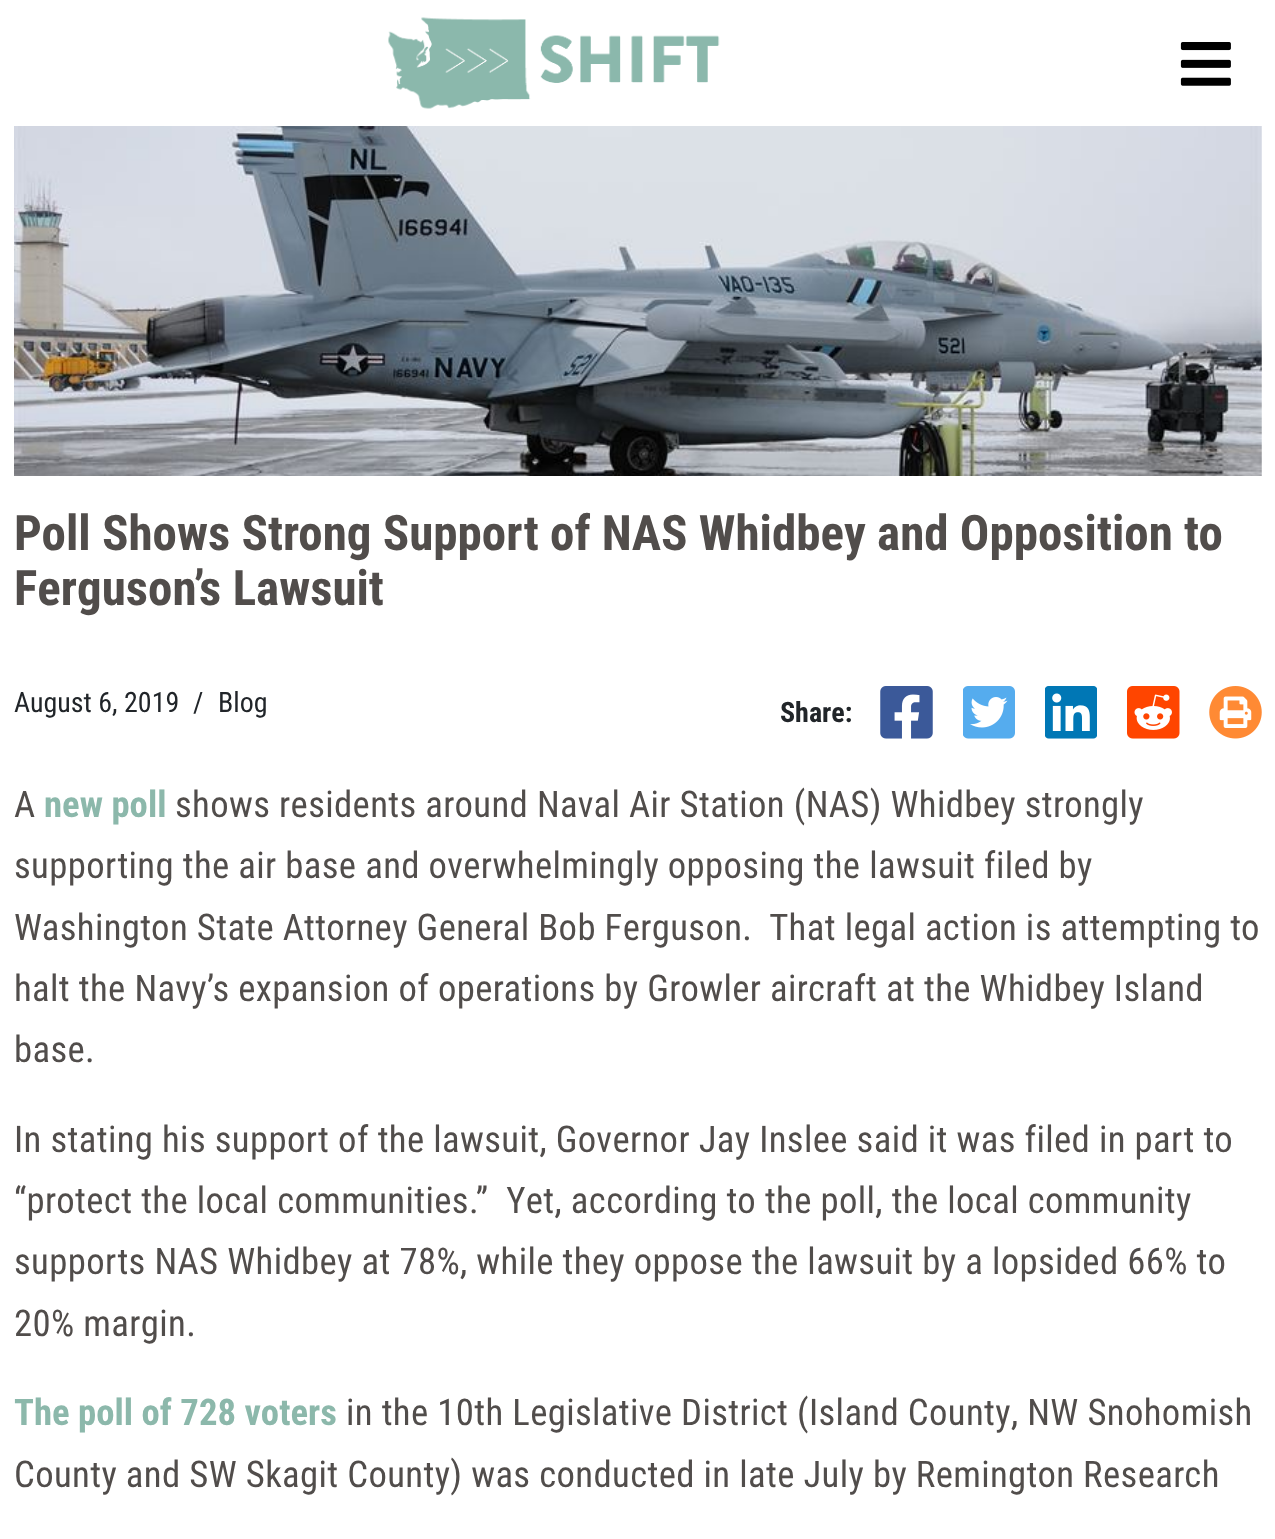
(async () => {
    const canvas = document.querySelector("canvas");
    canvas.width = 1275;
    canvas.height = 1539;
    const context = canvas.getContext("2d");
    context.miterLimit = 4;
    context.fontKerning = "normal";
    function write(s, x, y, font, color) {
        context.font = font;
        context.fillStyle = color;
        context.fillText(s, x, y);
    }
    function block(x, y, w, h, color) {
        context.fillStyle = color;
        context.fillRect(x, y, w, h);
    }
    async function photo(src, x, y, w, h) {
        const img = new Image();
        img.src = src;
        await img.decode();
        context.drawImage(img, x, y, w, h);
    }

    block(0, 0, 1275, 1539, "rgb(255, 255, 255)");
    await photo("media/1.png", 388, 17, 332, 92);
    await photo("media/2.png", 1180, 42, 51, 44);
    await photo("media/3.png", 14, 126, 1248, 350);
    write("Poll Shows Strong Support of NAS Whidbey and Opposition to", 14, 550, "bold 49px Roboto Condensed", "rgb(81, 77, 75)");
    write("Ferguson’s Lawsuit", 14, 605, "bold 49px Roboto Condensed", "rgb(81, 77, 75)");
    write("August 6, 2019", 14, 712, "28px Roboto Condensed", "rgb(33, 37, 41)");
    write("/", 193, 712, "28px Roboto Condensed", "rgb(33, 37, 41)");
    write("Blog", 218, 712, "28px Roboto Condensed", "rgb(33, 37, 41)");
    write("Share:", 780, 722, "bold 28px Roboto Condensed", "rgb(33, 37, 41)");
    await photo("media/4.png", 880, 686, 53, 53);
    await photo("media/5.png", 963, 686, 52, 53);
    await photo("media/6.png", 1045, 686, 52, 53);
    await photo("media/7.png", 1127, 686, 53, 53);
    await photo("media/8.png", 1209, 686, 53, 53);
    context.letterSpacing = "0.35px";
    write("A", 14, 817, "36.75px Roboto Condensed", "rgb(81, 77, 75)");
    context.letterSpacing = "0px";
    write("new poll", 44, 817, "bold 36.75px Roboto Condensed", "rgb(140, 184, 171)");
    context.letterSpacing = "0.35px";
    write("shows residents around Naval Air Station (NAS) Whidbey strongly", 175, 817, "36.75px Roboto Condensed", "rgb(81, 77, 75)");
    write("supporting the air base and overwhelmingly opposing the lawsuit filed by", 14, 878, "36.75px Roboto Condensed", "rgb(81, 77, 75)");
    write("Washington State Attorney General Bob Ferguson.  That legal action is attempting to", 14, 940, "36.75px Roboto Condensed", "rgb(81, 77, 75)");
    write("halt the Navy’s expansion of operations by Growler aircraft at the Whidbey Island", 14, 1001, "36.75px Roboto Condensed", "rgb(81, 77, 75)");
    write("base.", 14, 1062, "36.75px Roboto Condensed", "rgb(81, 77, 75)");
    write("In stating his support of the lawsuit, Governor Jay Inslee said it was filed in part to", 14, 1152, "36.75px Roboto Condensed", "rgb(81, 77, 75)");
    write("“protect the local communities.”  Yet, according to the poll, the local community", 14, 1213, "36.75px Roboto Condensed", "rgb(81, 77, 75)");
    write("supports NAS Whidbey at 78%, while they oppose the lawsuit by a lopsided 66% to", 14, 1274, "36.75px Roboto Condensed", "rgb(81, 77, 75)");
    write("20% margin.", 14, 1336, "36.75px Roboto Condensed", "rgb(81, 77, 75)");
    context.letterSpacing = "0px";
    write("The poll of 728 voters", 14, 1425, "bold 36.75px Roboto Condensed", "rgb(140, 184, 171)");
    context.letterSpacing = "0.35px";
    write("in the 10th Legislative District (Island County, NW Snohomish", 346, 1425, "36.75px Roboto Condensed", "rgb(81, 77, 75)");
    write("County and SW Skagit County) was conducted in late July by Remington Research", 14, 1487, "36.75px Roboto Condensed", "rgb(81, 77, 75)");
})();
